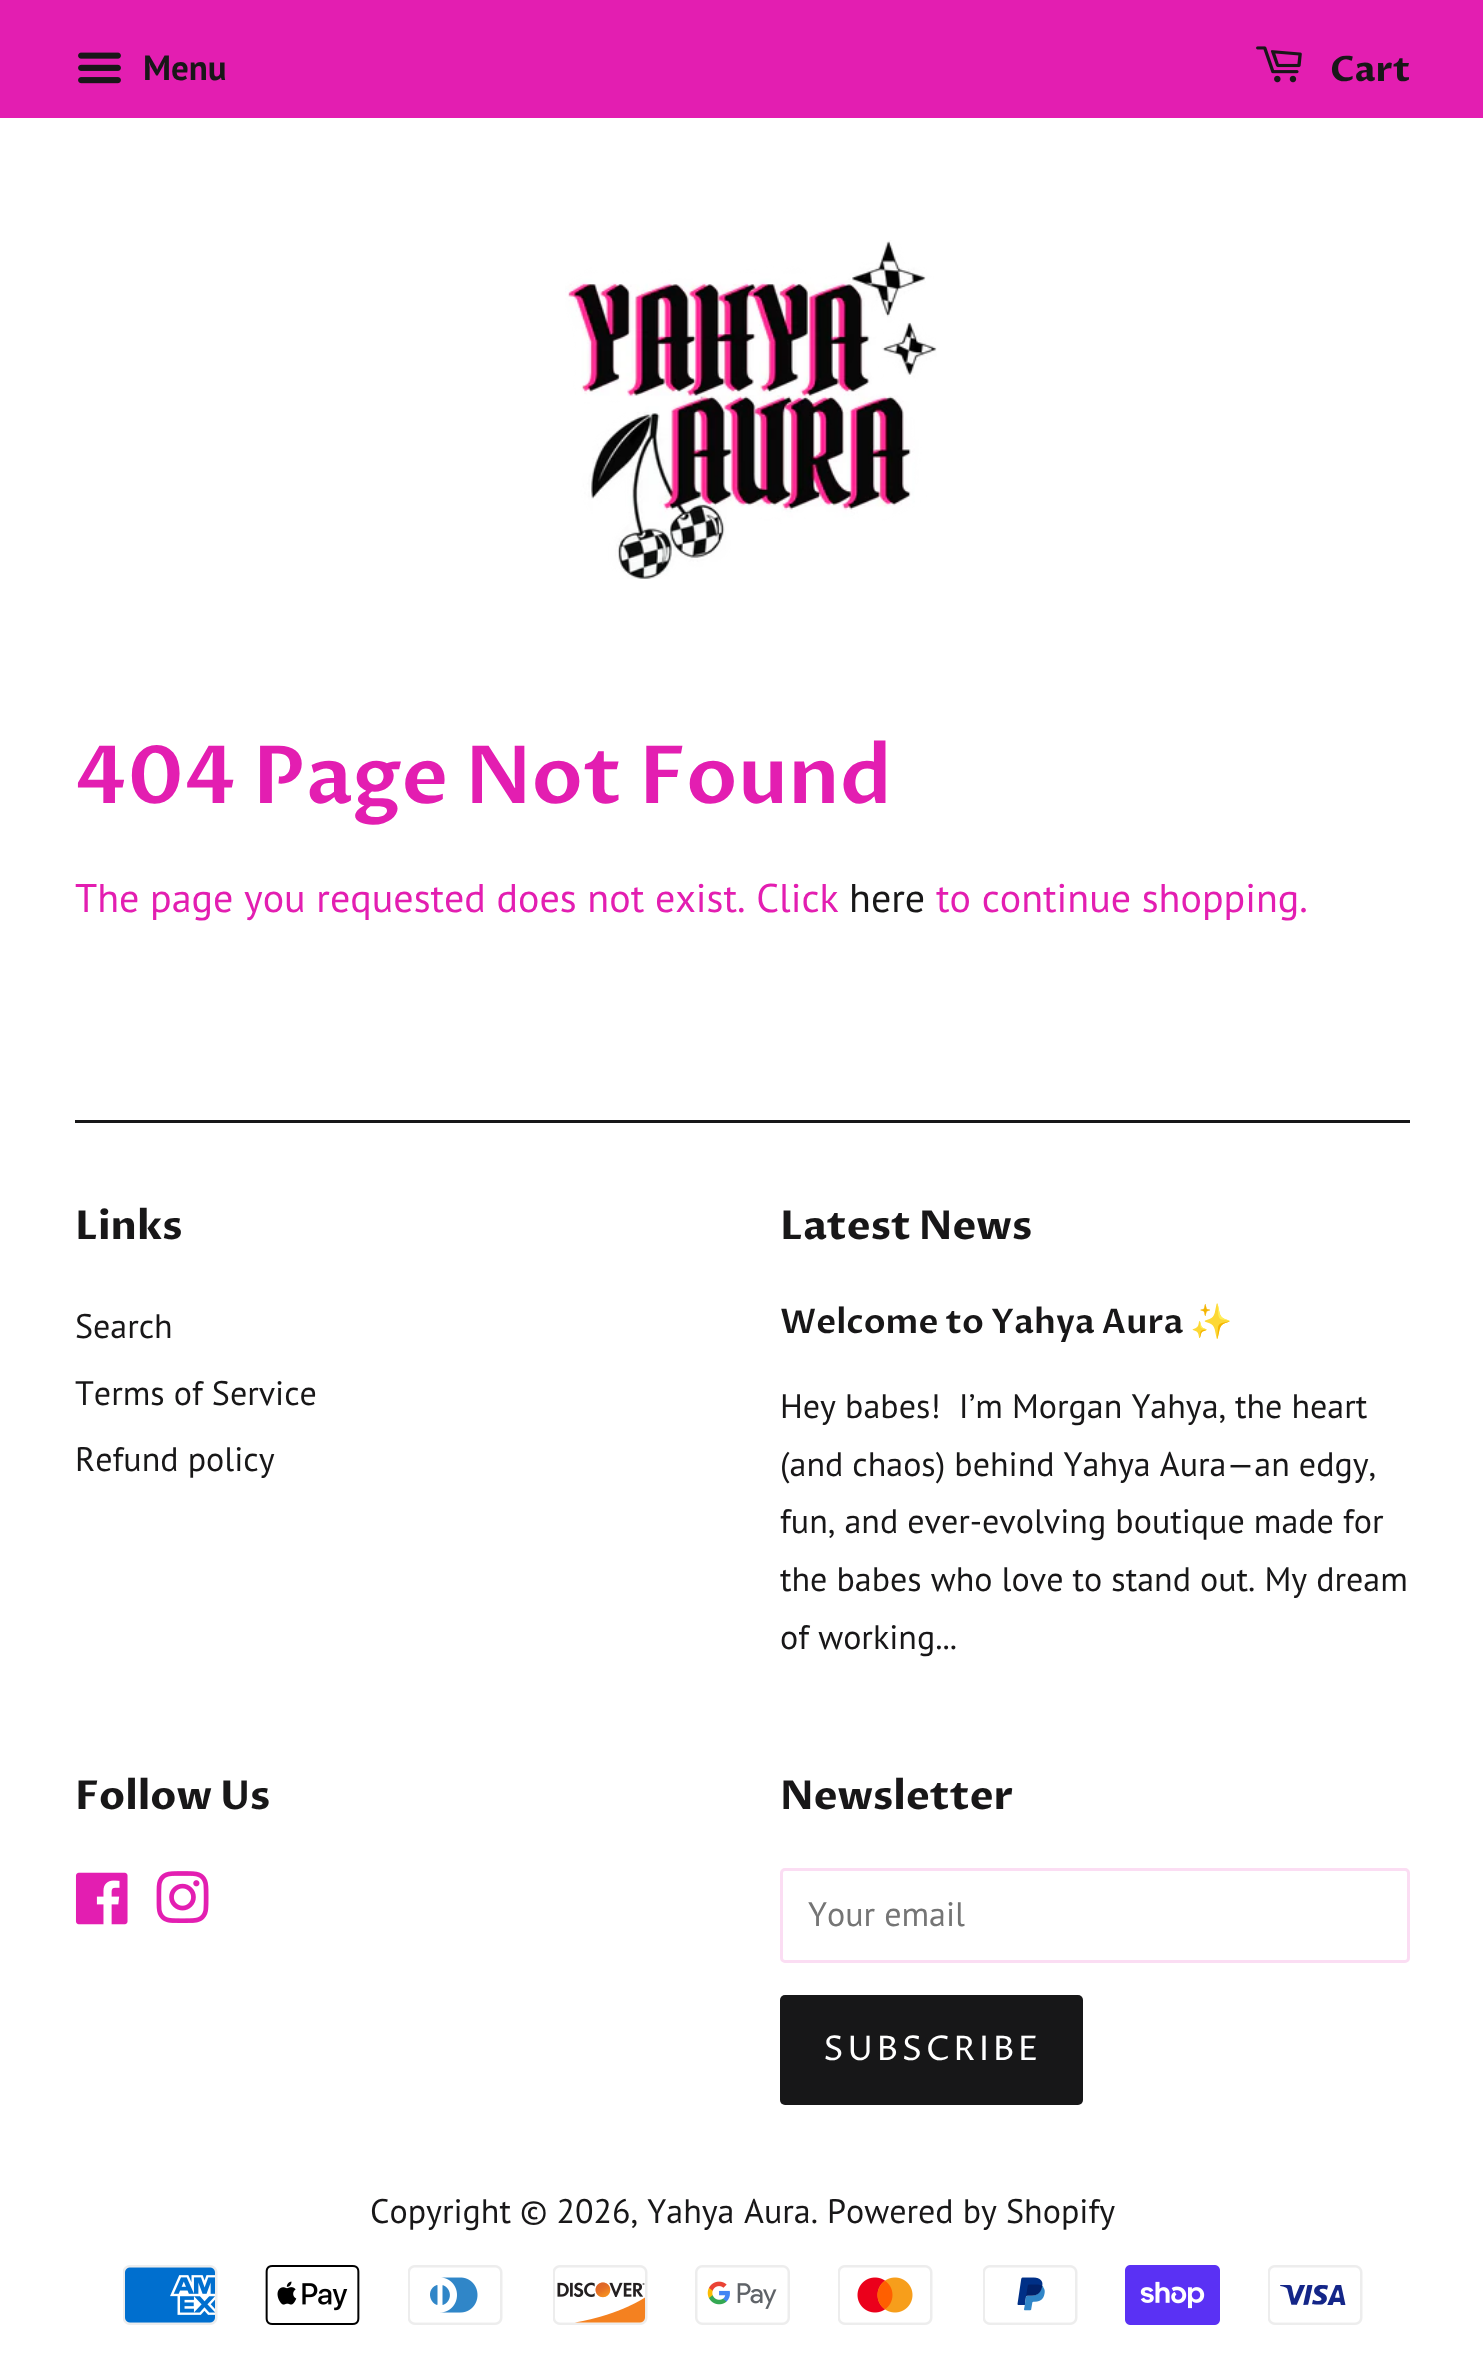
(async () => {
    const canvas = document.querySelector("canvas");
    canvas.width = 1483;
    canvas.height = 2370;
    const context = canvas.getContext("2d");
    context.miterLimit = 4;
    context.fontKerning = "none";
    function write(s, x, y, font, color) {
        context.font = font;
        context.fillStyle = color;
        context.fillText(s, x, y);
    }
    function block(x, y, w, h, color) {
        context.fillStyle = color;
        context.fillRect(x, y, w, h);
    }
    function card(x, y, w, h, r, color) {
        context.fillStyle = color;
        context.beginPath();
        context.roundRect(x, y, w, h, r);
        context.fill();
    }
    async function photo(src, x, y, w, h) {
        const img = new Image();
        img.src = src;
        await img.decode();
        context.drawImage(img, x, y, w, h);
    }

    block(0, 0, 1483, 2370, "rgb(255, 255, 255)");
    block(0, 0, 1483, 118, "rgb(227, 30, 177)");
    await photo("media/1.png", 78, 52, 43, 32);
    write("Menu", 143, 80, "bold 35px PT Sans", "rgb(24, 23, 24)");
    await photo("media/2.png", 1256, 46, 46, 37);
    write("Cart", 1330, 81, "bold 35px Proza Libre", "rgb(24, 23, 24)");
    await photo("media/3.png", 565, 240, 372, 339);
    write("404 Page Not Found", 75, 803, "600 80px Proza Libre", "rgb(227, 30, 177)");
    write("The page you requested does not exist. Click", 75, 912, "40px PT Sans", "rgb(227, 30, 177)");
    write("here", 849, 912, "40px PT Sans", "rgb(24, 23, 24)");
    write("to continue shopping.", 936, 912, "40px PT Sans", "rgb(227, 30, 177)");
    block(75, 1120, 1335, 3, "rgb(23, 23, 24)");
    write("Links", 75, 1239, "bold 40px Proza Libre", "rgb(24, 23, 24)");
    write("Search", 75, 1338, "34px PT Sans", "rgb(24, 23, 24)");
    write("Terms of Service", 75, 1405, "34px PT Sans", "rgb(24, 23, 24)");
    write("Refund policy", 75, 1471, "34px PT Sans", "rgb(24, 23, 24)");
    write("Latest News", 780, 1239, "bold 40px Proza Libre", "rgb(24, 23, 24)");
    write("Welcome to Yahya Aura", 780, 1333, "600 34px Proza Libre", "rgb(24, 23, 24)");
    write("✨", 1190, 1333, "bold 34px Noto Color Emoji", "rgb(24, 23, 24)");
    write("Hey babes!  I’m Morgan Yahya,", 780, 1418, "34px PT Sans", "rgb(24, 23, 24)");
    write("the heart", 1235, 1418, "34px PT Sans", "rgb(24, 23, 24)");
    write("(and chaos) behind Yahya Aura—an edgy,", 780, 1476, "34px PT Sans", "rgb(24, 23, 24)");
    write("fun, and ever-evolving boutique made for", 780, 1533, "34px PT Sans", "rgb(24, 23, 24)");
    write("the babes who love to stand out. My dream", 780, 1591, "34px PT Sans", "rgb(24, 23, 24)");
    write("of working...", 780, 1649, "34px PT Sans", "rgb(24, 23, 24)");
    write("Follow Us", 75, 1809, "bold 40px Proza Libre", "rgb(24, 23, 24)");
    await photo("media/4.png", 75, 1872, 53, 53);
    await photo("media/5.png", 156, 1871, 53, 52);
    write("Newsletter", 780, 1809, "bold 40px Proza Libre", "rgb(24, 23, 24)");
    context.beginPath();
    context.roundRect(781.5, 1869.5, 627, 92, 3.5);
    context.strokeStyle = "rgb(251, 221, 243)";
    context.lineWidth = 3;
    context.stroke();
    write("Your email", 808, 1926, "34px PT Sans", "rgb(117, 117, 117)");
    card(780, 1995, 303, 110, 5, "rgb(23, 23, 24)");
    context.letterSpacing = "3.5px";
    write("SUBSCRIBE", 823, 2060, "34px Proza Libre", "rgb(255, 255, 255)");
    context.letterSpacing = "0px";
    write("Copyright © 2026, Yahya", 370, 2223, "34px PT Sans", "rgb(24, 23, 24)");
    write("Aura. Powered by", 744, 2223, "34px PT Sans", "rgb(24, 23, 24)");
    write("Shopify", 1006, 2223, "34px PT Sans", "rgb(24, 23, 24)");
    await photo("media/6.png", 123, 2265, 95, 60);
    await photo("media/7.png", 265, 2265, 95, 60);
    await photo("media/8.png", 408, 2265, 95, 60);
    await photo("media/9.png", 553, 2265, 95, 60);
    await photo("media/10.png", 695, 2265, 95, 60);
    await photo("media/11.png", 838, 2265, 95, 60);
    await photo("media/12.png", 983, 2265, 95, 60);
    await photo("media/13.png", 1125, 2265, 95, 60);
    await photo("media/14.png", 1268, 2265, 95, 60);
})();
